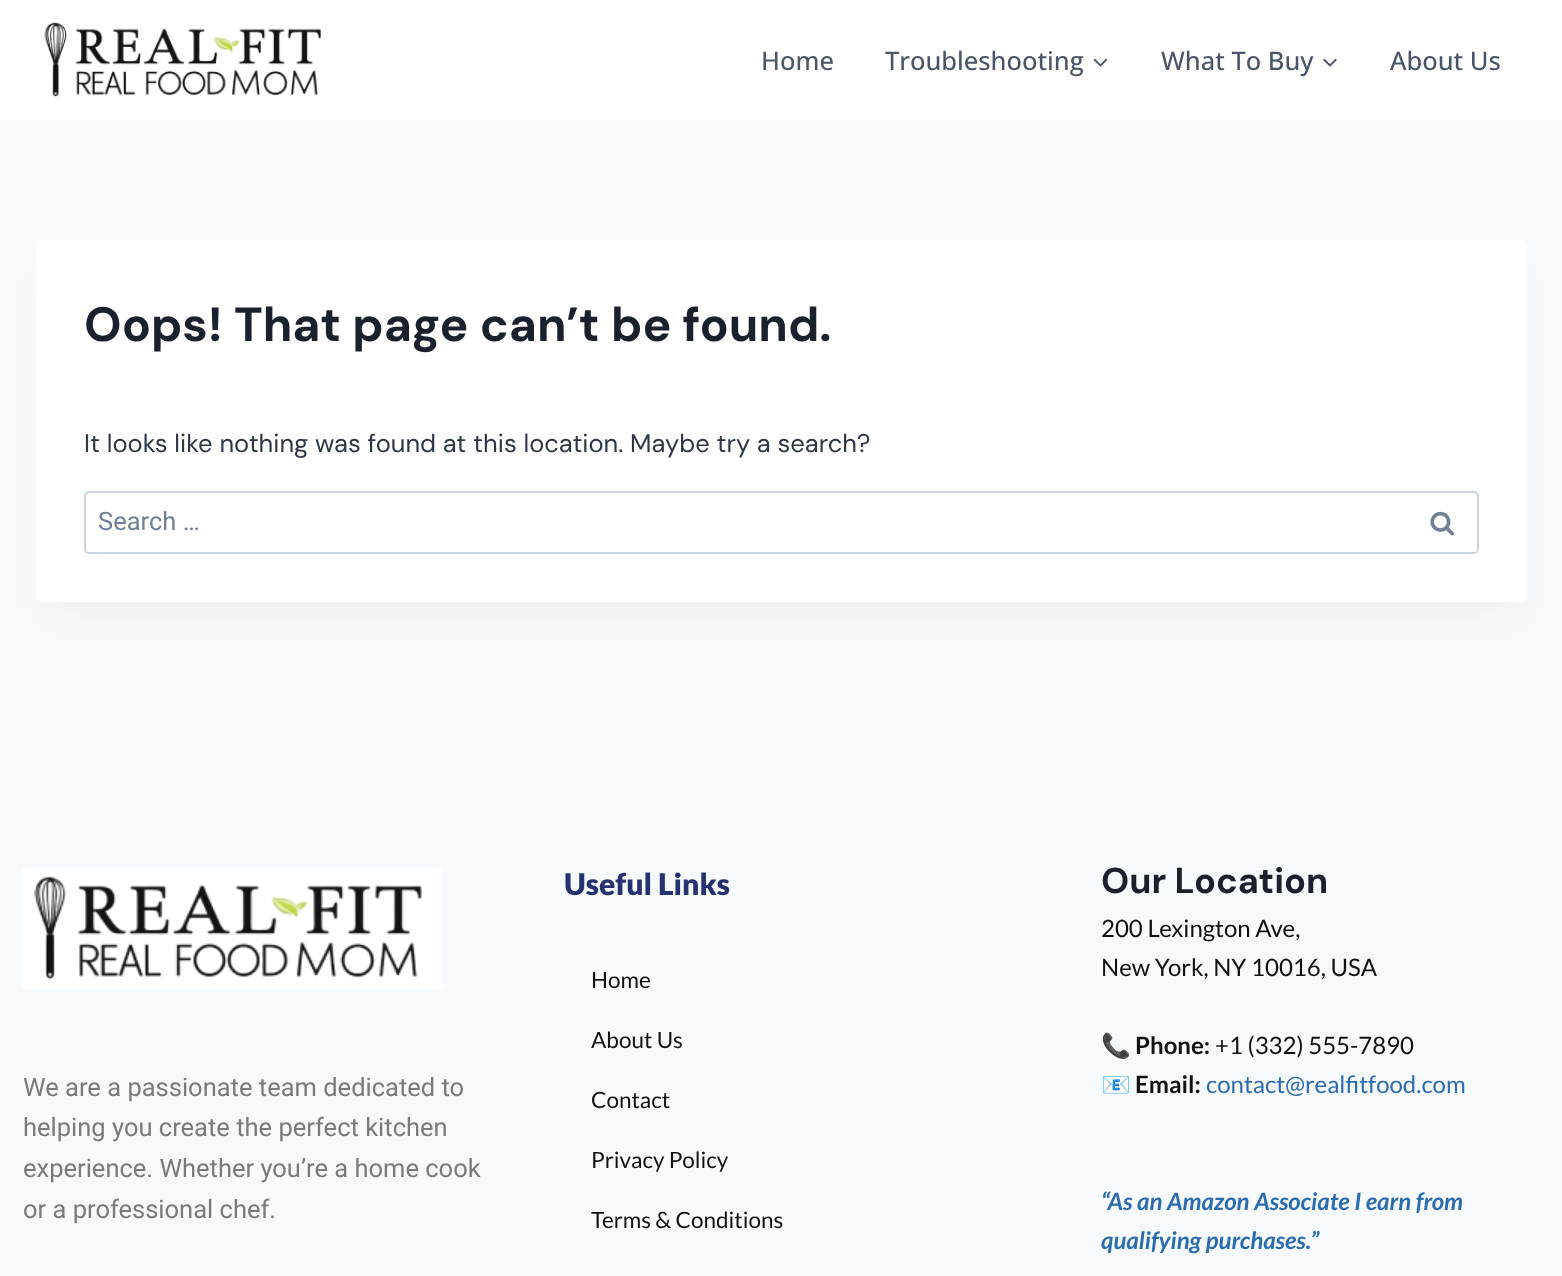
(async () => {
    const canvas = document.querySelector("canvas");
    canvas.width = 1562;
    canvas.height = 1276;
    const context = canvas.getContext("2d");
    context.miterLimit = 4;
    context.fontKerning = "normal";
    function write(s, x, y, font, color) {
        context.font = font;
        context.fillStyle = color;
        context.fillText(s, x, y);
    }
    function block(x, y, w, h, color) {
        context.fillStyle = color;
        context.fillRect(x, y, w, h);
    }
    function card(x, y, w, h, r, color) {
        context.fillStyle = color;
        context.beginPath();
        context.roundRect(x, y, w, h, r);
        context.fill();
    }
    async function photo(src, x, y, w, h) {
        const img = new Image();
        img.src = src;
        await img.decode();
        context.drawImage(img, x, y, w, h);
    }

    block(0, 0, 1562, 1276, "rgb(247, 250, 252)");
    block(0, 0, 1562, 120, "rgb(255, 255, 255)");
    await photo("media/1.png", 44, 22, 278, 75);
    write("Home", 761, 70, "500 25.5px Open Sans", "rgb(74, 85, 104)");
    write("Troubleshooting", 885, 70, "500 25.5px Open Sans", "rgb(74, 85, 104)");
    await photo("media/2.png", 1093, 58, 15, 9);
    write("What To Buy", 1161, 70, "500 25.5px Open Sans", "rgb(74, 85, 104)");
    await photo("media/3.png", 1323, 58, 14, 9);
    write("About Us", 1390, 70, "500 25.5px Open Sans", "rgb(74, 85, 104)");
    context.fillStyle = "rgba(0, 0, 0, 0.05)";
    context.filter = "blur(19px)";
    context.beginPath();
    context.rect(51, 278, 1461, 331);
    context.fill();
    context.filter = "none";
    card(36, 240, 1491, 362, 6, "rgb(255, 255, 255)");
    write("Oops! That page can’t be found.", 84, 341, "bold 48px DM Sans", "rgb(26, 32, 44)");
    write("It looks like nothing was found at this location. Maybe try a search?", 84, 452, "25.5px DM Sans", "rgb(45, 55, 72)");
    context.beginPath();
    context.roundRect(85, 492, 1393, 61, 4);
    context.strokeStyle = "rgb(203, 213, 224)";
    context.lineWidth = 2;
    context.stroke();
    write("Search …", 98, 530, "25.5px Roboto", "rgb(113, 128, 150)");
    await photo("media/4.png", 1430, 511, 25, 25);
    await photo("media/5.png", 22, 868, 421, 121);
    write("We are a passionate team dedicated to", 23, 1096, "25.5px Roboto", "rgb(122, 122, 122)");
    write("helping you create the perfect kitchen", 23, 1136, "25.5px Roboto", "rgb(122, 122, 122)");
    write("experience. Whether you’re a home cook", 23, 1177, "25.5px Roboto", "rgb(122, 122, 122)");
    write("or a professional chef.", 23, 1218, "25.5px Roboto", "rgb(122, 122, 122)");
    write("Useful Links", 564, 895, "900 30px Lato", "rgb(39, 49, 113)");
    write("Home", 591, 988, "22.5px Lato", "rgb(17, 17, 17)");
    write("About Us", 591, 1048, "22.5px Lato", "rgb(17, 17, 17)");
    write("Contact", 591, 1108, "22.5px Lato", "rgb(17, 17, 17)");
    write("Privacy Policy", 591, 1168, "22.5px Lato", "rgb(17, 17, 17)");
    write("Terms & Conditions", 591, 1228, "22.5px Lato", "rgb(17, 17, 17)");
    write("Our Location", 1101, 893, "bold 36px DM Sans", "rgb(26, 32, 44)");
    write("200 Lexington Ave,", 1101, 937, "24px Lato", "rgb(17, 17, 17)");
    write("New York, NY 10016, USA", 1101, 976, "24px Lato", "rgb(17, 17, 17)");
    write("📞", 1101, 1054, "24px Noto Color Emoji", "rgb(17, 17, 17)");
    write("Phone:", 1135, 1054, "bold 24px Lato", "rgb(17, 17, 17)");
    write("+1 (332) 555-7890", 1215, 1054, "24px Lato", "rgb(17, 17, 17)");
    write("📧", 1101, 1093, "24px Noto Color Emoji", "rgb(17, 17, 17)");
    write("Email:", 1135, 1093, "bold 24px Lato", "rgb(17, 17, 17)");
    write("contact@realfitfood.com", 1206, 1093, "24px Lato", "rgb(43, 108, 176)");
    write("“As an Amazon Associate I earn from", 1101, 1210, "italic bold 24px Lato", "rgb(43, 108, 176)");
    write("qualifying purchases.”", 1101, 1249, "italic bold 24px Lato", "rgb(43, 108, 176)");
})();
